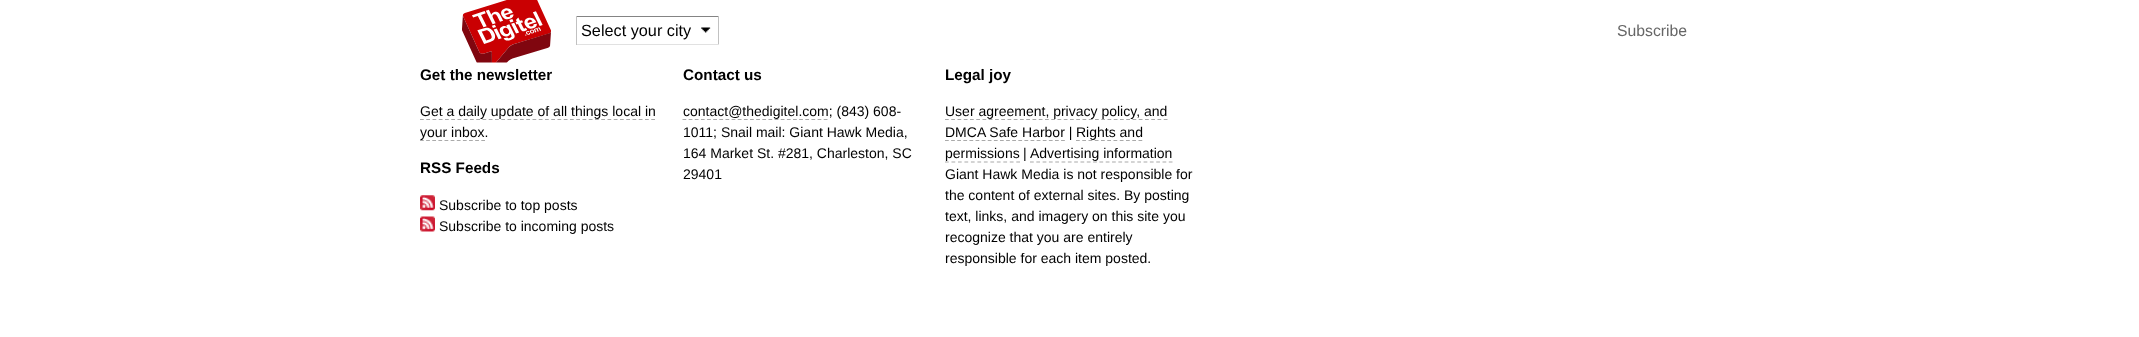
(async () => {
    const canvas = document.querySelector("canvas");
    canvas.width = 2139;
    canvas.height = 337;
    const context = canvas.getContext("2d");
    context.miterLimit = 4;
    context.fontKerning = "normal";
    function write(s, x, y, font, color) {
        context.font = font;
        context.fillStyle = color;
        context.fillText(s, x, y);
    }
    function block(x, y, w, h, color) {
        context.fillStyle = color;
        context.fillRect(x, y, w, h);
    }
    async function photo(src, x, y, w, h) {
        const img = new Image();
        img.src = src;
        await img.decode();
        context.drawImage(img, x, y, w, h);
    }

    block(0, 0, 2139, 337, "rgb(255, 255, 255)");
    await photo("media/1.png", 462, 0, 89, 63);
    await photo("media/2.png", 701, 27, 10, 6);
    block(576, 16, 143, 1, "rgb(132, 132, 132)");
    block(718, 16, 1, 29, "rgb(193, 193, 193)");
    block(576, 44, 143, 1, "rgb(225, 225, 225)");
    block(576, 16, 1, 29, "rgb(193, 193, 193)");
    write("Select your city", 581, 36, "16.25px Liberation Sans", "rgb(0, 0, 0)");
    write("Subscribe", 1617, 36, "15.75px Liberation Sans", "rgb(102, 102, 102)");
    write("Get the newsletter", 420, 80, "bold 15.25px Liberation Sans", "rgb(0, 0, 0)");
    context.beginPath();
    context.moveTo(420, 119.5);
    context.lineTo(655, 119.5);
    context.strokeStyle = "rgb(170, 170, 170)";
    context.lineWidth = 1.2;
    context.setLineDash([3.75, 2.5]);
    context.stroke();
    write("Get a daily update of all things local in", 420, 116, "14px Liberation Sans", "rgb(0, 0, 0)");
    context.beginPath();
    context.moveTo(420, 140.5);
    context.lineTo(485, 140.5);
    context.setLineDash([3.75, 2.38]);
    context.stroke();
    write("your inbox.", 420, 137, "14px Liberation Sans", "rgb(0, 0, 0)");
    write("RSS Feeds", 420, 173, "bold 15.25px Liberation Sans", "rgb(0, 0, 0)");
    await photo("media/3.png", 420, 195, 15, 16);
    write("Subscribe to top posts", 439, 210, "14px Liberation Sans", "rgb(0, 0, 0)");
    await photo("media/4.png", 420, 216, 15, 16);
    write("Subscribe to incoming posts", 439, 231, "14px Liberation Sans", "rgb(0, 0, 0)");
    write("Contact us", 683, 80, "bold 15.25px Liberation Sans", "rgb(0, 0, 0)");
    context.beginPath();
    context.moveTo(682.5, 119.5);
    context.lineTo(827.5, 119.5);
    context.setLineDash([3.75, 2.39]);
    context.stroke();
    write("contact@thedigitel.com; (843) 608-", 683, 116, "14px Liberation Sans", "rgb(0, 0, 0)");
    write("1011; Snail mail: Giant Hawk Media,", 683, 137, "14px Liberation Sans", "rgb(0, 0, 0)");
    write("164 Market St. #281, Charleston, SC", 683, 158, "14px Liberation Sans", "rgb(0, 0, 0)");
    write("29401", 683, 179, "14px Liberation Sans", "rgb(0, 0, 0)");
    write("Legal joy", 945, 80, "bold 15.25px Liberation Sans", "rgb(0, 0, 0)");
    context.beginPath();
    context.moveTo(945, 119.5);
    context.lineTo(1167.5, 119.5);
    context.setLineDash([3.75, 2.5]);
    context.stroke();
    write("User agreement, privacy policy, and", 945, 116, "14px Liberation Sans", "rgb(0, 0, 0)");
    context.beginPath();
    context.moveTo(945, 140.5);
    context.lineTo(1065, 140.5);
    context.setLineDash([3.75, 2.36]);
    context.stroke();
    write("DMCA Safe Harbor |", 945, 137, "14px Liberation Sans", "rgb(0, 0, 0)");
    context.beginPath();
    context.moveTo(1076, 140.5);
    context.lineTo(1142.5, 140.5);
    context.setLineDash([3.75, 2.5]);
    context.stroke();
    write("Rights and", 1076, 137, "14px Liberation Sans", "rgb(0, 0, 0)");
    write("permissions", 945, 158, "14px Liberation Sans", "rgb(0, 0, 0)");
    context.beginPath();
    context.moveTo(945, 162);
    context.lineTo(1020, 162);
    context.setLineDash([3.75, 2.73]);
    context.stroke();
    write("|", 1023, 158, "14px Liberation Sans", "rgb(0, 0, 0)");
    write("Advertising information", 1030, 158, "14px Liberation Sans", "rgb(0, 0, 0)");
    context.beginPath();
    context.moveTo(1030, 162);
    context.lineTo(1172.5, 162);
    context.setLineDash([3.75, 2.56]);
    context.stroke();
    write("Giant Hawk Media is not responsible for", 945, 179, "14px Liberation Sans", "rgb(0, 0, 0)");
    write("the content of external sites. By posting", 945, 200, "14px Liberation Sans", "rgb(0, 0, 0)");
    write("text, links, and imagery on this site you", 945, 221, "14px Liberation Sans", "rgb(0, 0, 0)");
    write("recognize that you are entirely", 945, 242, "14px Liberation Sans", "rgb(0, 0, 0)");
    write("responsible for each item posted.", 945, 263, "14px Liberation Sans", "rgb(0, 0, 0)");
})();
